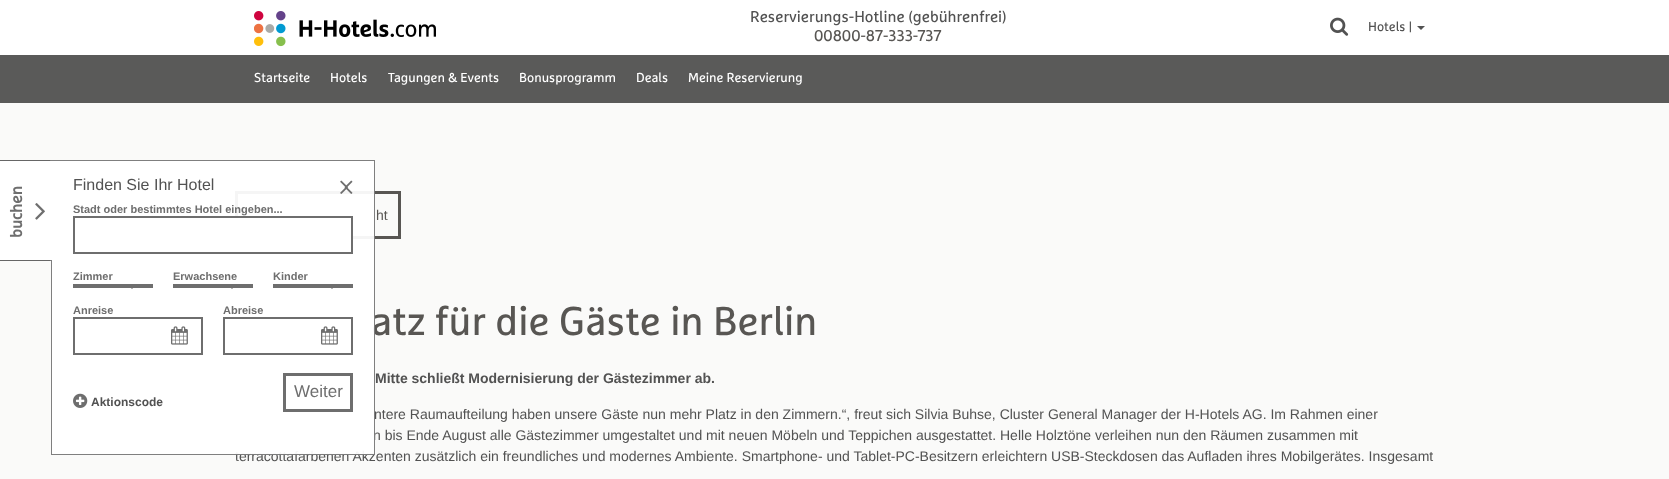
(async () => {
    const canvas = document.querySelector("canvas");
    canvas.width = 1669;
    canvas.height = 479;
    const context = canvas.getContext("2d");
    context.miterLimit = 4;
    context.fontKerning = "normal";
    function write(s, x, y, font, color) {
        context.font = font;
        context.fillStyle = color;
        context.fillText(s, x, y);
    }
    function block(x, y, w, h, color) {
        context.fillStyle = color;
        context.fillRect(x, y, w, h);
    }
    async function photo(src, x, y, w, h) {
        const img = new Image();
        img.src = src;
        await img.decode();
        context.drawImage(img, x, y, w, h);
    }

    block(0, 0, 1669, 479, "rgb(250, 250, 249)");
    block(0, 0, 1669, 55, "rgb(255, 255, 255)");
    await photo("media/1.png", 254, 11, 182, 36);
    write("Reservierungs-Hotline (gebührenfrei)", 750, 22, "15.6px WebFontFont", "rgb(82, 82, 82)");
    write("00800-87-333-737", 814, 41, "15.6px WebFontFont", "rgb(88, 86, 83)");
    await photo("media/2.png", 1330, 17, 19, 19);
    write("Hotels |", 1368, 31, "13px WebFontFont", "rgb(82, 82, 82)");
    context.beginPath();
    context.moveTo(1417, 26);
    context.lineTo(1425, 26);
    context.lineTo(1421, 30);
    context.closePath();
    context.fill();
    block(0, 55, 1669, 48, "rgb(90, 90, 89)");
    write("Startseite", 254, 82, "13px WebFontFont", "rgb(255, 255, 255)");
    write("Hotels", 330, 82, "13px WebFontFont", "rgb(255, 255, 255)");
    write("Tagungen & Events", 388, 82, "13px WebFontFont", "rgb(255, 255, 255)");
    write("Bonusprogramm", 519, 82, "13px WebFontFont", "rgb(255, 255, 255)");
    write("Deals", 636, 82, "13px WebFontFont", "rgb(255, 255, 255)");
    write("Meine Reservierung", 688, 82, "13px WebFontFont", "rgb(255, 255, 255)");
    block(0, 160, 51, 101, "rgb(255, 255, 255)");
    context.fillStyle = "rgb(102, 102, 102)";
    context.beginPath();
    context.moveTo(0, 160);
    context.lineTo(51, 160);
    context.lineTo(50, 161);
    context.lineTo(0, 161);
    context.closePath();
    context.fill();
    context.fillStyle = "rgba(0, 0, 0, 0.6)";
    context.beginPath();
    context.moveTo(51, 160);
    context.lineTo(51, 261);
    context.lineTo(50, 260);
    context.lineTo(50, 161);
    context.closePath();
    context.fill();
    context.beginPath();
    context.moveTo(51, 261);
    context.lineTo(0, 261);
    context.lineTo(0, 260);
    context.lineTo(50, 260);
    context.closePath();
    context.fill();
    context.font = "bold 16px WebFontFont";
    context.fillStyle = "rgb(110, 110, 110)";
    context.save();
    context.translate(22, 238);
    context.rotate(-90 * Math.PI / 180);
    context.fillText("buchen", 0, 0);
    context.restore();
    await photo("media/3.png", 35, 203, 10, 17);
    context.beginPath();
    context.moveTo(236.5, 192.5);
    context.lineTo(399.5, 192.5);
    context.lineTo(399.5, 237.5);
    context.lineTo(236.5, 237.5);
    context.closePath();
    context.strokeStyle = "rgb(88, 86, 83)";
    context.lineWidth = 3;
    context.stroke();
    write("atz für die Gäste in Berlin", 371, 335, "40px WebFontFont", "rgb(88, 86, 83)");
    write("n bis Ende August alle Gästezimmer umgestaltet und mit neuen Möbeln und Teppichen ausgestattet. Helle Holztöne verleihen nun den Räumen zusammen mit", 373, 440, "14px Liberation Sans", "rgb(82, 82, 82)");
    write("terracottafarbenen Akzenten zusätzlich ein freundliches und modernes Ambiente. Smartphone- und Tablet-PC-Besitzern erleichtern USB-Steckdosen das Aufladen ihres Mobilgerätes. Insgesamt", 235, 461, "14px Liberation Sans", "rgb(82, 82, 82)");
    block(51, 160, 324, 295, "rgba(255, 255, 255, 0.94)");
    context.strokeStyle = "rgba(0, 0, 0, 0.5)";
    context.lineWidth = 1;
    context.strokeRect(51.5, 160.5, 323, 294);
    block(50, 161, 2, 99, "rgb(255, 255, 255)");
    write("Finden Sie Ihr Hotel", 73, 190, "16px Liberation Sans", "rgb(82, 82, 82)");
    await photo("media/5.png", 344, 180, 9, 14);
    await photo("media/4.png", 340, 180, 8, 14);
    write("Stadt oder bestimmtes Hotel eingeben...", 73, 213, "bold 11px Liberation Sans", "rgb(110, 110, 110)");
    block(235, 218, 116, 21, "rgb(255, 255, 255)");
    context.strokeStyle = "rgb(110, 110, 110)";
    context.lineWidth = 2;
    context.strokeRect(74, 217, 278, 36);
    write("Zimmer", 73, 280, "bold 11px Liberation Sans", "rgb(110, 110, 110)");
    block(73, 284, 80, 4, "rgb(110, 110, 110)");
    context.beginPath();
    context.moveTo(127, 284);
    context.lineTo(137, 284);
    context.lineTo(132, 289);
    context.closePath();
    context.fill();
    write("Erwachsene", 173, 280, "bold 11px Liberation Sans", "rgb(110, 110, 110)");
    block(173, 284, 80, 4, "rgb(110, 110, 110)");
    context.beginPath();
    context.moveTo(227, 284);
    context.lineTo(237, 284);
    context.lineTo(232, 289);
    context.closePath();
    context.fill();
    write("Kinder", 273, 280, "bold 11px Liberation Sans", "rgb(110, 110, 110)");
    block(273, 284, 80, 4, "rgb(110, 110, 110)");
    context.beginPath();
    context.moveTo(327, 284);
    context.lineTo(337, 284);
    context.lineTo(332, 289);
    context.closePath();
    context.fill();
    write("Anreise", 73, 314, "bold 11px Liberation Sans", "rgb(110, 110, 110)");
    context.strokeRect(74, 318, 128, 36);
    await photo("media/6.png", 171, 326, 17, 19);
    write("Abreise", 223, 314, "bold 11px Liberation Sans", "rgb(110, 110, 110)");
    context.strokeRect(224, 318, 128, 36);
    await photo("media/7.png", 321, 326, 17, 19);
    context.beginPath();
    context.moveTo(284.5, 374.5);
    context.lineTo(351.5, 374.5);
    context.lineTo(351.5, 410.5);
    context.lineTo(284.5, 410.5);
    context.closePath();
    context.lineWidth = 3;
    context.stroke();
    write("Weiter", 294, 397, "17px Liberation Sans", "rgb(110, 110, 110)");
    await photo("media/8.png", 73, 393, 15, 15);
    write("Aktionscode", 91, 406, "bold 12px Liberation Sans", "rgb(82, 82, 82)");
    write("ht", 376, 220, "14px Liberation Sans", "rgb(88, 86, 83)");
    write("Mitte schließt Modernisierung der Gästezimmer ab.", 375, 383, "bold 14px Liberation Sans", "rgb(82, 82, 82)");
    write("ntere Raumaufteilung haben unsere Gäste nun mehr Platz in den Zimmern.“, freut sich Silvia Buhse, Cluster General Manager der H-Hotels AG. Im Rahmen einer", 374, 419, "14px Liberation Sans", "rgb(82, 82, 82)");
})();
